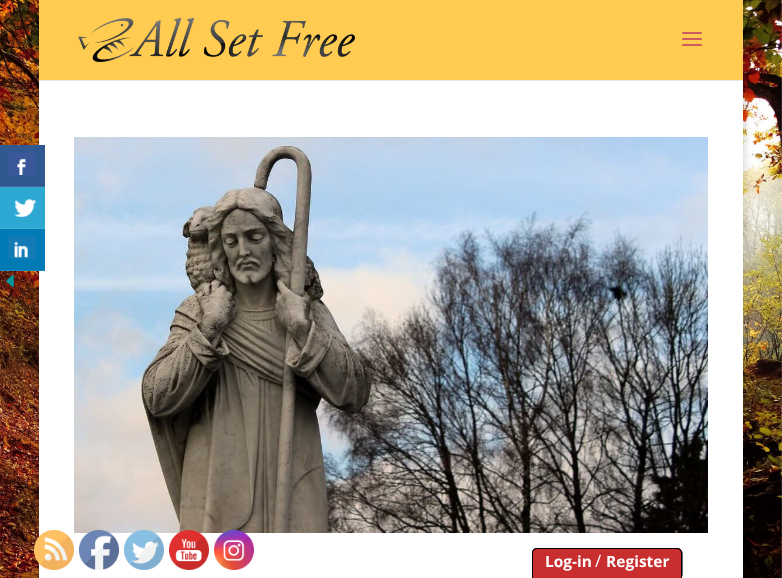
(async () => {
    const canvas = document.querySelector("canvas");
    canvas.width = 782;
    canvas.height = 578;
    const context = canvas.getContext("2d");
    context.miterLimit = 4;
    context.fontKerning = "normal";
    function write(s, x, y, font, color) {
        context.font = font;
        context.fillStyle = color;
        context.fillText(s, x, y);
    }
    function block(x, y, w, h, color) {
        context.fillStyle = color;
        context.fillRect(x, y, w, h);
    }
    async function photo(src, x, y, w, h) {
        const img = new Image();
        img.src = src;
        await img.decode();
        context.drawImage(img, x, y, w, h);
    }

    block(0, 0, 782, 578, "rgb(255, 255, 255)");
    await photo("media/1.png", 0, 0, 782, 578);
    context.fillStyle = "rgba(0, 0, 0, 0.2)";
    context.filter = "blur(5px)";
    context.beginPath();
    context.rect(39, 0, 704, 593);
    context.fill();
    context.filter = "none";
    block(39, 81, 704, 497, "rgb(255, 255, 255)");
    block(0, 145, 45, 41, "rgb(48, 88, 145)");
    block(0, 186, 45, 1, "rgb(69, 105, 156)");
    await photo("media/2.png", 8, 152, 28, 23);
    block(0, 187, 45, 41, "rgb(44, 168, 210)");
    block(0, 228, 45, 1, "rgb(65, 177, 215)");
    await photo("media/3.png", 14, 199, 23, 18);
    block(0, 229, 45, 41, "rgb(0, 123, 182)");
    block(0, 270, 45, 1, "rgb(26, 136, 189)");
    await photo("media/4.png", 8, 235, 29, 24);
    await photo("media/5.png", 6, 274, 8, 14);
    block(39, 80, 704, 1, "rgb(230, 230, 230)");
    block(39, 0, 704, 80, "rgb(255, 204, 81)");
    await photo("media/6.png", 78, 18, 277, 44);
    await photo("media/7.png", 682, 32, 20, 14);
    await photo("media/8.png", 74, 137, 634, 396);
    await photo("media/9.png", 34, 530, 40, 40);
    await photo("media/10.png", 79, 530, 40, 40);
    await photo("media/11.png", 124, 530, 40, 40);
    await photo("media/12.png", 169, 530, 40, 40);
    await photo("media/13.png", 214, 530, 40, 40);
    context.fillStyle = "rgb(102, 102, 102)";
    context.filter = "blur(0.5px)";
    context.beginPath();
    context.roundRect(533, 549, 150, 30, 5);
    context.fill();
    context.filter = "none";
    context.fillStyle = "rgb(201, 46, 46)";
    context.beginPath();
    context.roundRect(532, 548, 150, 30, [5, 5, 0, 0]);
    context.fill();
    context.fillStyle = "rgb(0, 0, 0)";
    context.beginPath();
    context.moveTo(537, 548);
    context.lineTo(677, 548);
    context.bezierCurveTo(680, 548, 682, 550, 682, 553);
    context.lineTo(682, 578);
    context.lineTo(532, 578);
    context.lineTo(532, 553);
    context.bezierCurveTo(532, 550, 534, 548, 537, 548);
    context.closePath();
    context.moveTo(537, 549);
    context.lineTo(677, 549);
    context.bezierCurveTo(679, 549, 681, 551, 681, 553);
    context.lineTo(681, 578);
    context.lineTo(533, 578);
    context.lineTo(533, 553);
    context.bezierCurveTo(533, 551, 535, 549, 537, 549);
    context.closePath();
    context.fill("evenodd");
    write("Log-in", 545, 567, "bold 15.5px Open Sans", "rgb(255, 255, 255)");
    write("/", 595, 567, "17px Open Sans", "rgb(255, 255, 255)");
    write("Register", 606, 567, "bold 15.5px Open Sans", "rgb(255, 255, 255)");
})();
